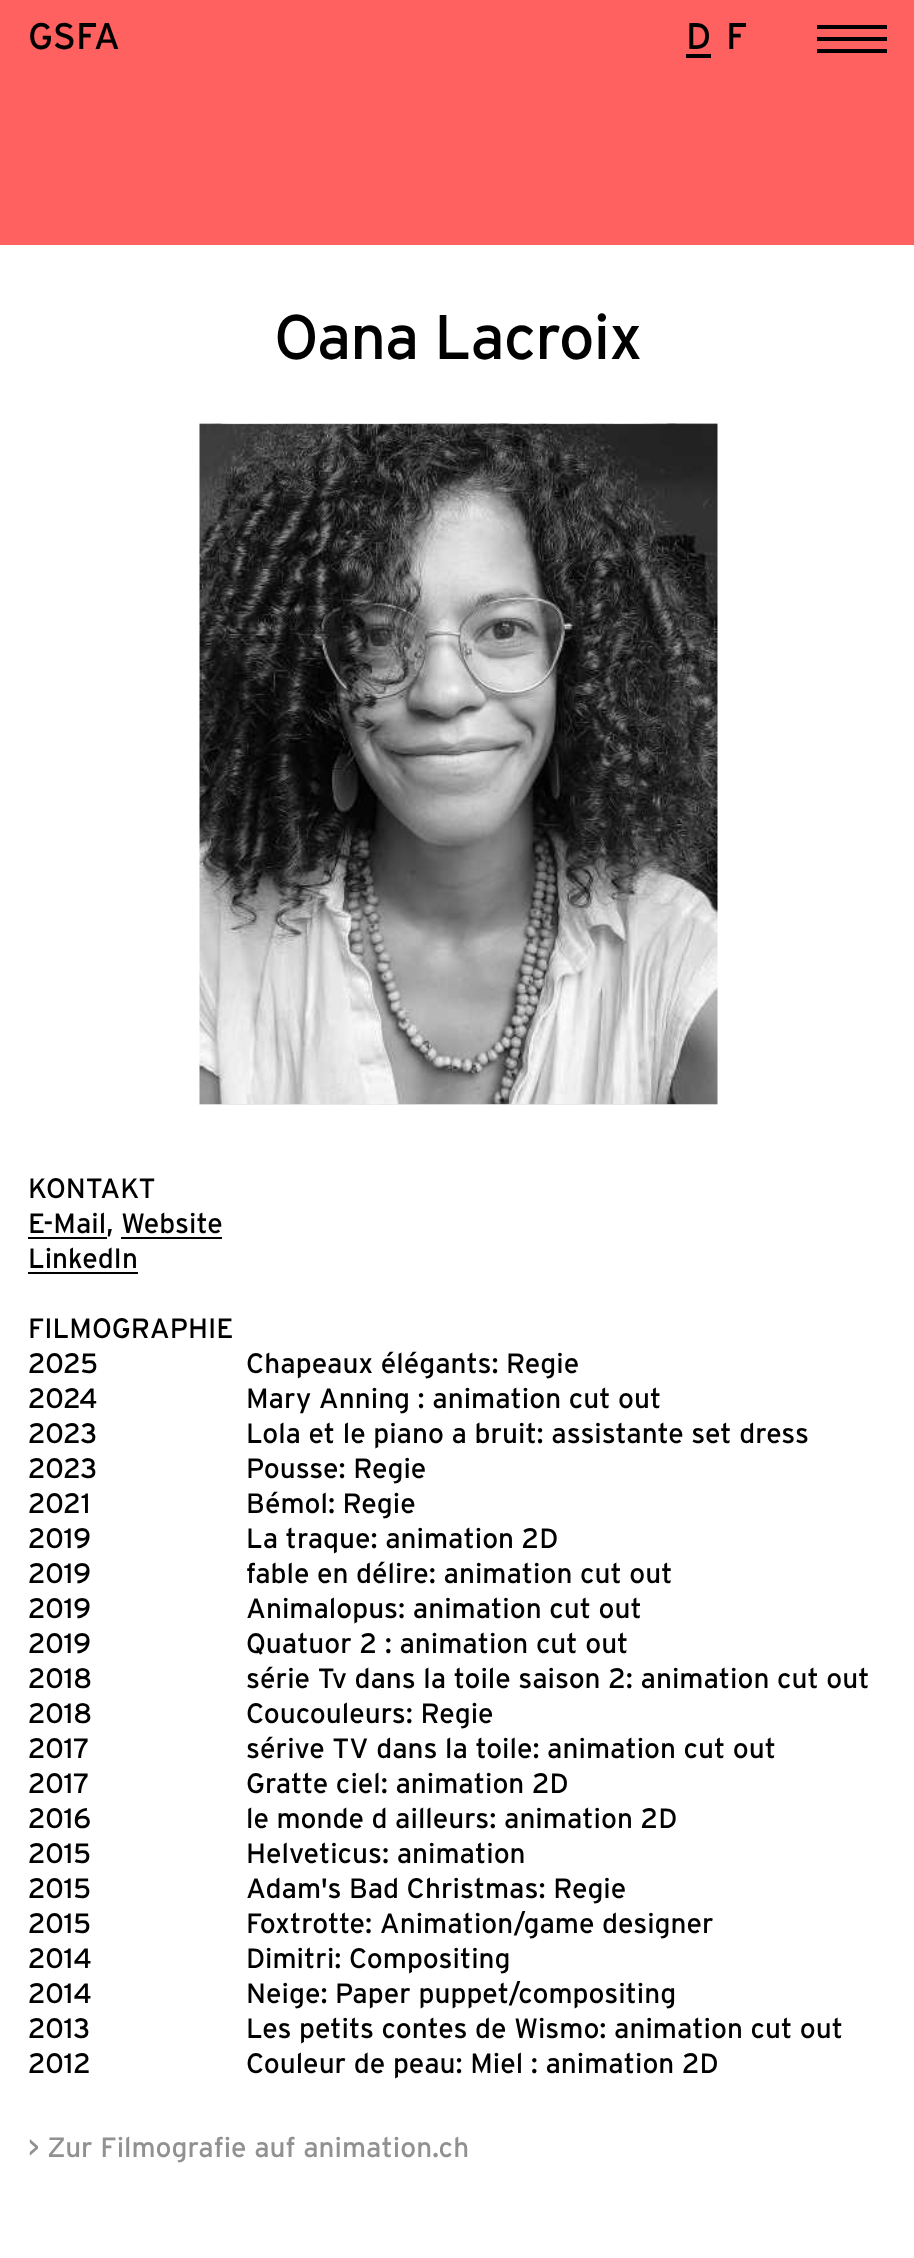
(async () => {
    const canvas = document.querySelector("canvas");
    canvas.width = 914;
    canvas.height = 2258;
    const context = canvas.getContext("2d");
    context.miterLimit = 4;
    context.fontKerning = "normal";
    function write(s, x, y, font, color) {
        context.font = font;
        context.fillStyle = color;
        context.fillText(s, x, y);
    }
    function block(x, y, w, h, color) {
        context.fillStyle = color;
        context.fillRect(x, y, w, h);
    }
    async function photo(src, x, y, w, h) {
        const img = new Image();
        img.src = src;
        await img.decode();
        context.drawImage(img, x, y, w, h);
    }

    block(0, 0, 914, 2258, "rgb(255, 96, 96)");
    write("GSFA", 28, 49, "37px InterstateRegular", "rgb(0, 0, 0)");
    write("D", 686, 49, "37px InterstateRegular", "rgb(0, 0, 0)");
    block(686, 54, 25, 4, "rgb(0, 0, 0)");
    write("F", 726, 49, "37px InterstateRegular", "rgb(0, 0, 0)");
    block(817, 25, 70, 4, "rgb(0, 0, 0)");
    block(817, 37, 70, 4, "rgb(0, 0, 0)");
    block(817, 49, 70, 4, "rgb(0, 0, 0)");
    block(0, 245, 914, 2013, "rgb(255, 255, 255)");
    context.letterSpacing = "-1.25px";
    write("Oana Lacroix", 274, 359, "63px InterstateRegular", "rgb(0, 0, 0)");
    await photo("media/1.png", 199, 423, 519, 682);
    context.letterSpacing = "0px";
    write("KONTAKT", 28, 1198, "28px InterstateRegular", "rgb(0, 0, 0)");
    write("E-Mail, Website", 28, 1233, "28px InterstateRegular", "rgb(0, 0, 0)");
    block(28, 1237, 79, 2, "rgb(0, 0, 0)");
    block(121, 1237, 101, 2, "rgb(0, 0, 0)");
    write("LinkedIn", 28, 1268, "28px InterstateRegular", "rgb(0, 0, 0)");
    block(28, 1272, 110, 2, "rgb(0, 0, 0)");
    write("FILMOGRAPHIE", 28, 1338, "28px InterstateRegular", "rgb(0, 0, 0)");
    write("2025", 28, 1373, "28px InterstateRegular", "rgb(0, 0, 0)");
    write("Chapeaux élégants: Regie", 246, 1373, "28px InterstateRegular", "rgb(0, 0, 0)");
    write("2024", 28, 1408, "28px InterstateRegular", "rgb(0, 0, 0)");
    write("Mary Anning : animation cut out", 246, 1408, "28px InterstateRegular", "rgb(0, 0, 0)");
    write("2023", 28, 1443, "28px InterstateRegular", "rgb(0, 0, 0)");
    write("Lola et le piano a bruit: assistante set dress", 246, 1443, "28px InterstateRegular", "rgb(0, 0, 0)");
    write("2023", 28, 1478, "28px InterstateRegular", "rgb(0, 0, 0)");
    write("Pousse: Regie", 246, 1478, "28px InterstateRegular", "rgb(0, 0, 0)");
    write("2021", 28, 1513, "28px InterstateRegular", "rgb(0, 0, 0)");
    write("Bémol: Regie", 246, 1513, "28px InterstateRegular", "rgb(0, 0, 0)");
    write("2019", 28, 1548, "28px InterstateRegular", "rgb(0, 0, 0)");
    write("La traque: animation 2D", 246, 1548, "28px InterstateRegular", "rgb(0, 0, 0)");
    write("2019", 28, 1583, "28px InterstateRegular", "rgb(0, 0, 0)");
    write("fable en délire: animation cut out", 246, 1583, "28px InterstateRegular", "rgb(0, 0, 0)");
    write("2019", 28, 1618, "28px InterstateRegular", "rgb(0, 0, 0)");
    write("Animalopus: animation cut out", 246, 1618, "28px InterstateRegular", "rgb(0, 0, 0)");
    write("2019", 28, 1653, "28px InterstateRegular", "rgb(0, 0, 0)");
    write("Quatuor 2 : animation cut out", 246, 1653, "28px InterstateRegular", "rgb(0, 0, 0)");
    write("2018", 28, 1688, "28px InterstateRegular", "rgb(0, 0, 0)");
    write("série Tv dans la toile saison 2: animation cut out", 246, 1688, "28px InterstateRegular", "rgb(0, 0, 0)");
    write("2018", 28, 1723, "28px InterstateRegular", "rgb(0, 0, 0)");
    write("Coucouleurs: Regie", 246, 1723, "28px InterstateRegular", "rgb(0, 0, 0)");
    write("2017", 28, 1758, "28px InterstateRegular", "rgb(0, 0, 0)");
    write("sérive TV dans la toile: animation cut out", 246, 1758, "28px InterstateRegular", "rgb(0, 0, 0)");
    write("2017", 28, 1793, "28px InterstateRegular", "rgb(0, 0, 0)");
    write("Gratte ciel: animation 2D", 246, 1793, "28px InterstateRegular", "rgb(0, 0, 0)");
    write("2016", 28, 1828, "28px InterstateRegular", "rgb(0, 0, 0)");
    write("le monde d ailleurs: animation 2D", 246, 1828, "28px InterstateRegular", "rgb(0, 0, 0)");
    write("2015", 28, 1863, "28px InterstateRegular", "rgb(0, 0, 0)");
    write("Helveticus: animation", 246, 1863, "28px InterstateRegular", "rgb(0, 0, 0)");
    write("2015", 28, 1898, "28px InterstateRegular", "rgb(0, 0, 0)");
    write("Adam's Bad Christmas: Regie", 246, 1898, "28px InterstateRegular", "rgb(0, 0, 0)");
    write("2015", 28, 1933, "28px InterstateRegular", "rgb(0, 0, 0)");
    write("Foxtrotte: Animation/game designer", 246, 1933, "28px InterstateRegular", "rgb(0, 0, 0)");
    write("2014", 28, 1968, "28px InterstateRegular", "rgb(0, 0, 0)");
    write("Dimitri: Compositing", 246, 1968, "28px InterstateRegular", "rgb(0, 0, 0)");
    write("2014", 28, 2003, "28px InterstateRegular", "rgb(0, 0, 0)");
    write("Neige: Paper puppet/compositing", 246, 2003, "28px InterstateRegular", "rgb(0, 0, 0)");
    write("2013", 28, 2038, "28px InterstateRegular", "rgb(0, 0, 0)");
    write("Les petits contes de Wismo: animation cut out", 246, 2038, "28px InterstateRegular", "rgb(0, 0, 0)");
    write("2012", 28, 2073, "28px InterstateRegular", "rgb(0, 0, 0)");
    write("Couleur de peau: Miel : animation 2D", 246, 2073, "28px InterstateRegular", "rgb(0, 0, 0)");
    write("> Zur Filmografie auf animation.ch", 28, 2157, "28px InterstateRegular", "rgb(145, 145, 145)");
})();
